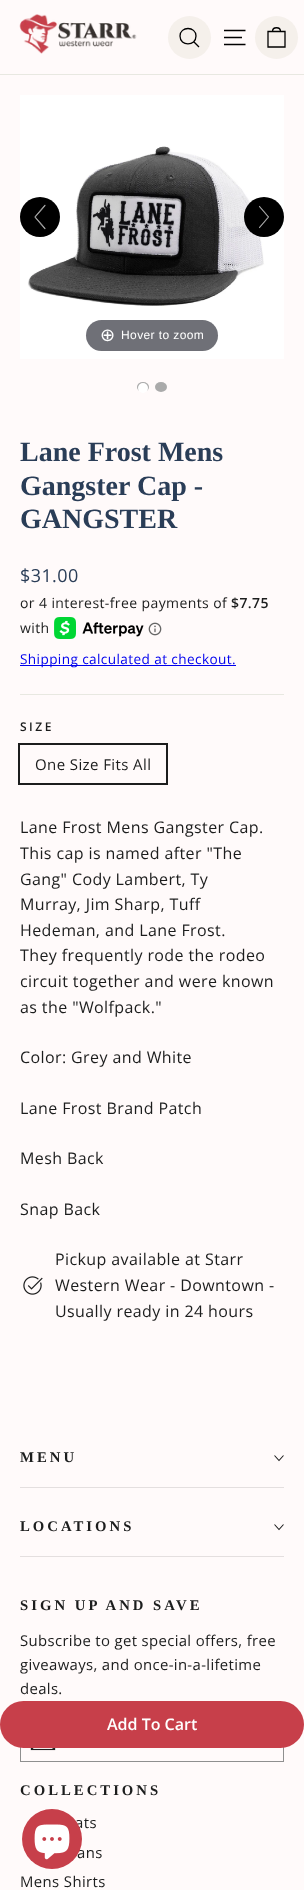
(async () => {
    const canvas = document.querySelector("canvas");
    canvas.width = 304;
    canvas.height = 1890;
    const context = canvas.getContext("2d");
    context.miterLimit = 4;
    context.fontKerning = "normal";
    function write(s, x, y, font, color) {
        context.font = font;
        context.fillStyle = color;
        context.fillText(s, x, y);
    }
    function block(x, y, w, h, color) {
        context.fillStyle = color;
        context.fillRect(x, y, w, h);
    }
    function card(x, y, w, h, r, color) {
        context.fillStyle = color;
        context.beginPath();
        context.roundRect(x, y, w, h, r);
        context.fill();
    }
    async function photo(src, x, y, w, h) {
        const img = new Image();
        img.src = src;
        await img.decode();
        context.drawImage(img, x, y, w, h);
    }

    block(0, 0, 304, 1890, "rgb(255, 250, 250)");
    block(0, 74, 304, 1, "rgb(232, 232, 225)");
    await photo("media/1.png", 19, 14, 118, 40);
    context.fillStyle = "rgb(245, 240, 235)";
    context.beginPath();
    context.arc(189.5, 37.5, 21.5, 0, Math.PI * 2);
    context.fill();
    context.beginPath();
    context.moveTo(196, 36);
    context.bezierCurveTo(196, 46.5, 180, 46.5, 180, 36);
    context.bezierCurveTo(180, 26, 196, 26, 196, 36);
    context.closePath();
    context.moveTo(199, 47);
    context.lineTo(193.5, 41.5);
    context.strokeStyle = "rgb(0, 0, 0)";
    context.lineWidth = 1.3;
    context.stroke();
    context.beginPath();
    context.moveTo(224, 30.5);
    context.lineTo(245.5, 30.5);
    context.moveTo(224, 37.5);
    context.lineTo(242, 37.5);
    context.moveTo(224, 44.5);
    context.lineTo(245.5, 44.5);
    context.stroke();
    context.beginPath();
    context.arc(276.5, 37.5, 21.5, 0, Math.PI * 2);
    context.fill();
    context.beginPath();
    context.moveTo(268, 31.5);
    context.lineTo(285, 31.5);
    context.lineTo(285, 47);
    context.lineTo(268, 47);
    context.closePath();
    context.moveTo(272.5, 31.5);
    context.bezierCurveTo(272.5, 26.5, 280.5, 26.5, 280.5, 31.5);
    context.stroke();
    await photo("media/4.png", 20, 95, 264, 264);
    context.fillStyle = "rgb(0, 0, 0)";
    context.beginPath();
    context.arc(40, 217, 20, 0, Math.PI * 2);
    context.fill();
    await photo("media/2.png", 34, 204, 12, 26);
    context.beginPath();
    context.arc(264, 217, 20, 0, Math.PI * 2);
    context.fill();
    await photo("media/3.png", 259, 205, 10, 24);
    card(86, 320, 132, 31, 15.5, "rgb(111, 112, 119)");
    context.letterSpacing = "0.4px";
    write("⊕", 100, 341, "18px DejaVu Sans", "rgb(255, 255, 255)");
    write("Hover to zoom", 121, 339, "12px Liberation Sans", "rgb(255, 255, 255)");
    context.fillStyle = "rgb(170, 170, 170)";
    context.beginPath();
    context.ellipse(143, 387, 6, 5, 0, 0, Math.PI * 2);
    context.fill();
    context.fillStyle = "rgb(255, 255, 255)";
    context.beginPath();
    context.arc(143, 388, 5, 0, Math.PI * 2);
    context.fill();
    context.fillStyle = "rgb(170, 170, 170)";
    context.beginPath();
    context.ellipse(161, 387, 6, 5, 0, 0, Math.PI * 2);
    context.fill();
    context.letterSpacing = "0px";
    write("Lane Frost Mens", 20, 461, "bold 28px Liberation Serif", "rgb(42, 61, 87)");
    write("Gangster Cap -", 20, 495, "bold 28px Liberation Serif", "rgb(42, 61, 87)");
    write("GANGSTER", 20, 528, "bold 28px Liberation Serif", "rgb(42, 61, 87)");
    context.letterSpacing = "0.4px";
    write("$31.00", 20, 582, "18px Open Sans", "rgb(42, 61, 87)");
    write("or 4 interest-free payments of", 20, 608, "14px Open Sans", "rgb(28, 29, 29)");
    write("$7.75", 231, 608, "600 14px Open Sans", "rgb(28, 29, 29)");
    write("with", 20, 633, "14px Open Sans", "rgb(28, 29, 29)");
    await photo("media/5.png", 54, 617, 90, 22);
    await photo("media/6.png", 148, 622, 14, 14);
    block(20, 665, 216, 1, "rgb(0, 0, 238)");
    write("Shipping calculated at checkout.", 20, 664, "13.6px Open Sans", "rgb(0, 0, 238)");
    block(20, 694, 264, 1, "rgb(232, 232, 225)");
    context.letterSpacing = "2.5px";
    write("SIZE", 20, 731, "600 12px Open Sans", "rgb(28, 29, 29)");
    context.strokeStyle = "rgb(28, 29, 29)";
    context.lineWidth = 2;
    context.strokeRect(19, 744, 148, 40);
    context.letterSpacing = "0.4px";
    write("One Size Fits All", 35, 770, "15px Open Sans", "rgb(28, 29, 29)");
    write("Lane Frost Mens Gangster Cap.", 20, 833, "16px Open Sans", "rgb(28, 29, 29)");
    write("This cap is named after \"The", 20, 859, "16px Open Sans", "rgb(28, 29, 29)");
    write("Gang\" Cody Lambert, Ty", 20, 885, "16px Open Sans", "rgb(28, 29, 29)");
    write("Murray, Jim Sharp, Tuff", 20, 910, "16px Open Sans", "rgb(28, 29, 29)");
    write("Hedeman, and Lane Frost.", 20, 936, "16px Open Sans", "rgb(28, 29, 29)");
    write("They frequently rode the rodeo", 20, 961, "16px Open Sans", "rgb(28, 29, 29)");
    write("circuit together and were known", 20, 987, "16px Open Sans", "rgb(28, 29, 29)");
    write("as the \"Wolfpack.\"", 20, 1013, "16px Open Sans", "rgb(28, 29, 29)");
    write("Color: Grey and White", 20, 1063, "16px Open Sans", "rgb(28, 29, 29)");
    write("Lane Frost Brand Patch", 20, 1114, "16px Open Sans", "rgb(28, 29, 29)");
    write("Mesh Back", 20, 1164, "16px Open Sans", "rgb(28, 29, 29)");
    write("Snap Back", 20, 1215, "16px Open Sans", "rgb(28, 29, 29)");
    await photo("media/7.png", 23, 1276, 20, 19);
    write("Pickup available at Starr", 55, 1265, "16px Open Sans", "rgb(28, 29, 29)");
    write("Western Wear - Downtown -", 55, 1291, "16px Open Sans", "rgb(28, 29, 29)");
    write("Usually ready in 24 hours", 55, 1317, "16px Open Sans", "rgb(28, 29, 29)");
    context.strokeStyle = "rgb(143, 143, 143)";
    context.lineWidth = 1;
    context.strokeRect(20.5, 1721.5, 263, 40);
    card(0, 1701, 304, 47, 23.5, "rgb(199, 63, 74)");
    context.letterSpacing = "0px";
    write("Add To Cart", 107, 1730, "600 16px Open Sans", "rgb(255, 255, 255)");
    context.letterSpacing = "3px";
    write("MENU", 20, 1462, "bold 14.75px Liberation Serif", "rgb(28, 29, 29)");
    context.beginPath();
    context.moveTo(274.5, 1455.5);
    context.lineTo(279, 1460.5);
    context.lineTo(283.5, 1455.5);
    context.strokeStyle = "rgb(28, 29, 29)";
    context.lineWidth = 1.1;
    context.stroke();
    block(20, 1487, 264, 1, "rgb(228, 223, 223)");
    write("LOCATIONS", 20, 1531, "bold 14.75px Liberation Serif", "rgb(28, 29, 29)");
    context.beginPath();
    context.moveTo(274.5, 1524.5);
    context.lineTo(279, 1529.5);
    context.lineTo(283.5, 1524.5);
    context.stroke();
    block(20, 1556, 264, 1, "rgb(228, 223, 223)");
    write("SIGN UP AND SAVE", 20, 1610, "bold 14.75px Liberation Serif", "rgb(28, 29, 29)");
    context.letterSpacing = "0.35px";
    write("Subscribe to get special offers, free", 20, 1646, "14.9px Open Sans", "rgb(28, 29, 29)");
    write("giveaways, and once-in-a-lifetime", 20, 1670, "14.9px Open Sans", "rgb(28, 29, 29)");
    write("deals.", 20, 1694, "14.9px Open Sans", "rgb(28, 29, 29)");
    await photo("media/8.png", 30, 1748, 26, 3);
    context.letterSpacing = "3px";
    write("COLLECTIONS", 20, 1795, "bold 14.75px Liberation Serif", "rgb(28, 29, 29)");
    context.letterSpacing = "0.4px";
    write("ats", 75, 1828, "14.9px Open Sans", "rgb(28, 29, 29)");
    write("ans", 77, 1858, "14.9px Open Sans", "rgb(28, 29, 29)");
    write("Mens Shirts", 20, 1887, "14.9px Open Sans", "rgb(28, 29, 29)");
    context.fillStyle = "rgb(199, 63, 74)";
    context.beginPath();
    context.arc(52, 1839, 30, 0, Math.PI * 2);
    context.fill();
    await photo("media/9.png", 34, 1824, 36, 36);
})();
